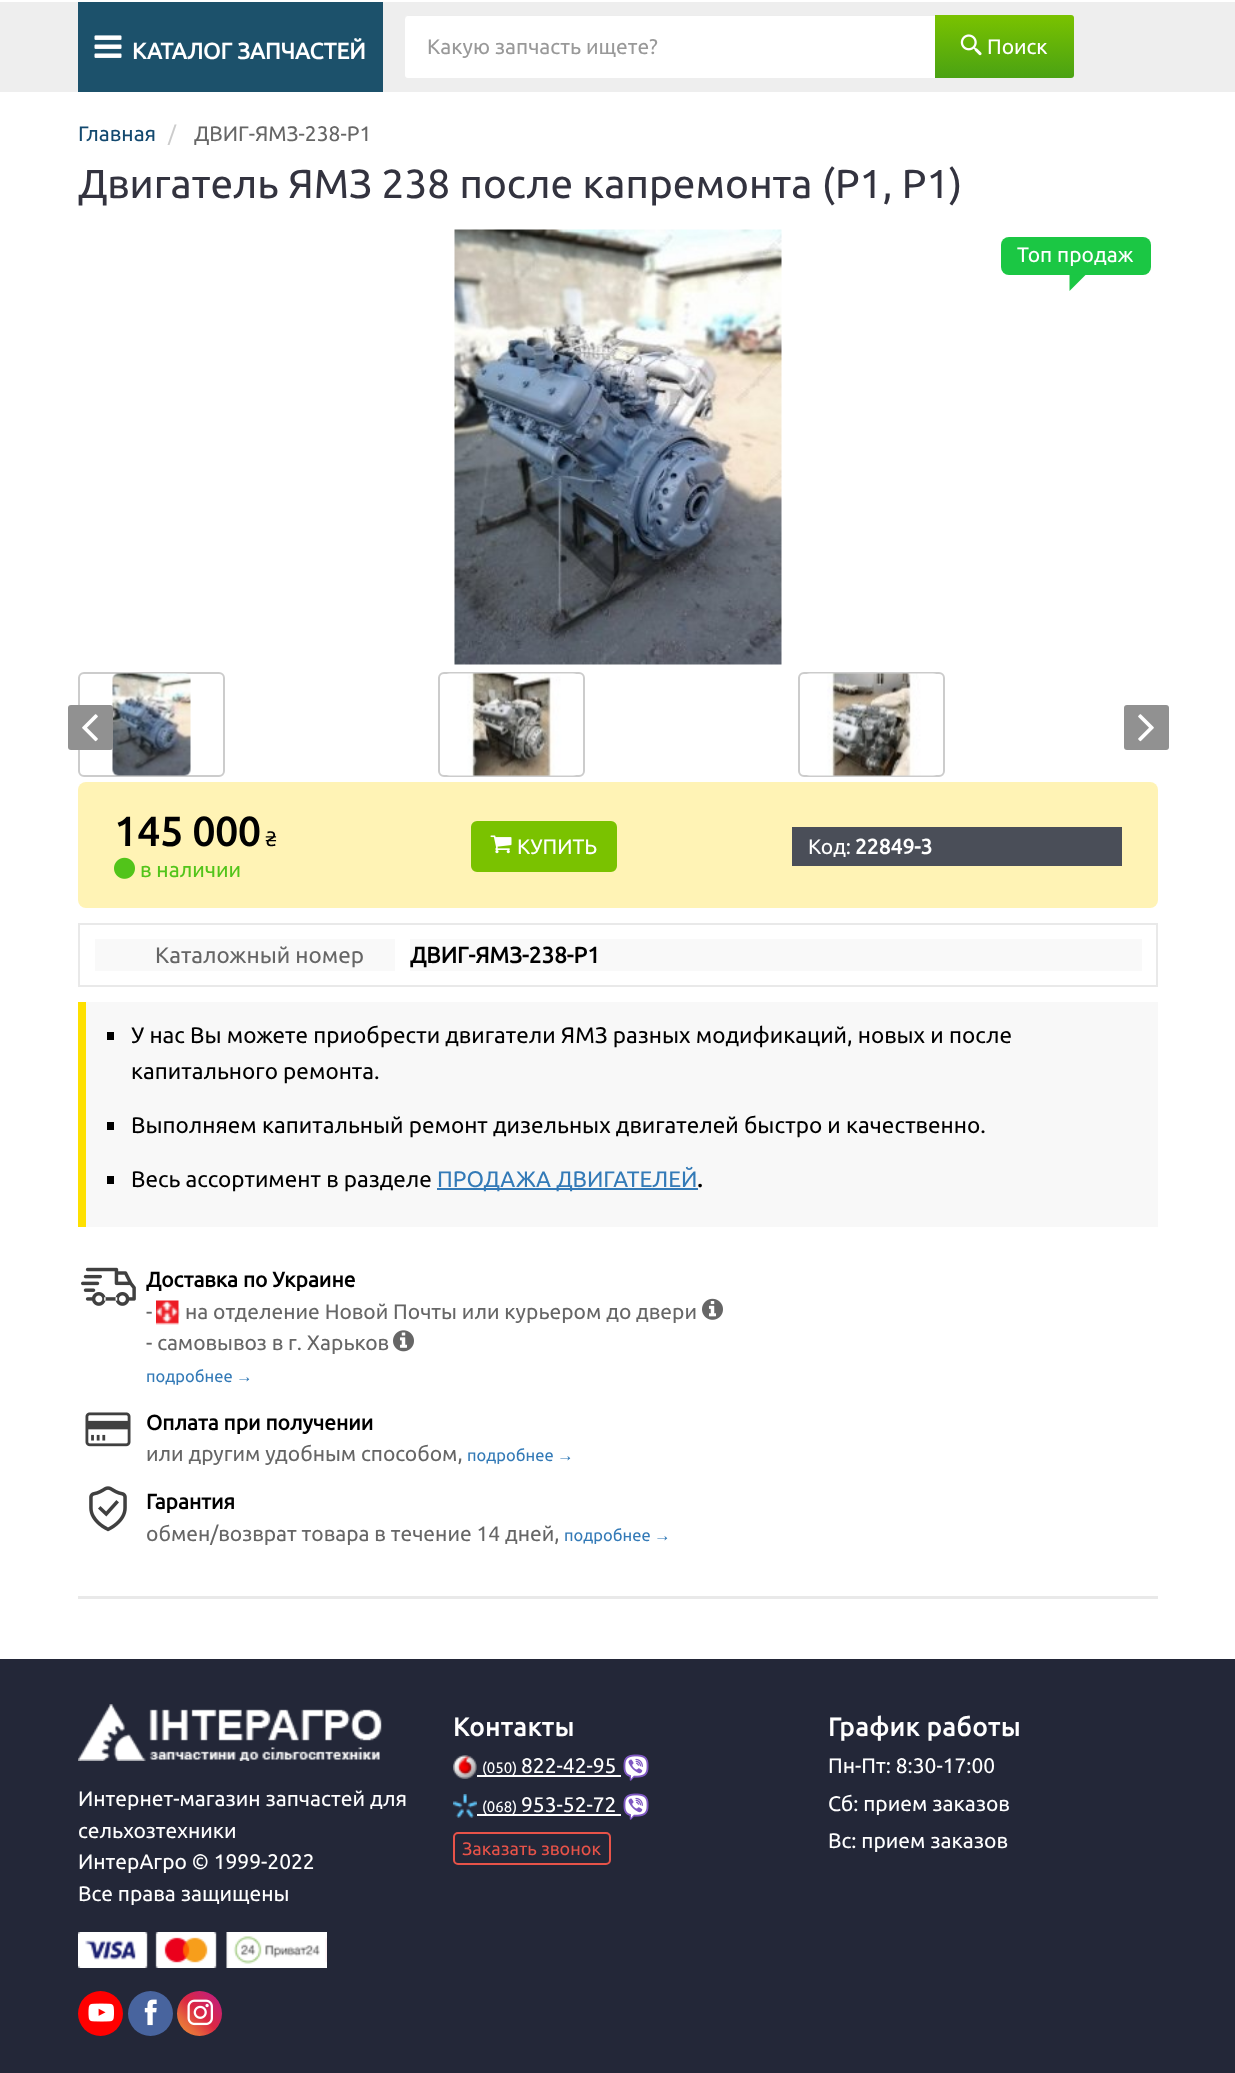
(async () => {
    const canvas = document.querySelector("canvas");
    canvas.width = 1235;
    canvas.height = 2073;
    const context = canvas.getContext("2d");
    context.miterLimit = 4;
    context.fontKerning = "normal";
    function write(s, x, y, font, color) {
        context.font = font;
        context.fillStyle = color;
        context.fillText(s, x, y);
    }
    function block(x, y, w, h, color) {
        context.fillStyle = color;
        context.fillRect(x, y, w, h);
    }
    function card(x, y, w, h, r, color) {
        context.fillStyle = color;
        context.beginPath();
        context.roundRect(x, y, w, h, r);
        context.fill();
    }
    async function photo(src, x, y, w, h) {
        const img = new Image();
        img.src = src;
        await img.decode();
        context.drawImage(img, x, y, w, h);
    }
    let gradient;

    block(0, 0, 1235, 2073, "rgb(255, 255, 255)");
    block(0, 2, 1235, 90, "rgb(238, 238, 238)");
    block(78, 2, 305, 90, "rgb(28, 81, 107)");
    await photo("media/1.png", 94, 35, 28, 23);
    write("КАТАЛОГ ЗАПЧАСТЕЙ", 132, 59, "bold 22.5px Ubuntu", "rgb(255, 255, 255)");
    card(405, 15, 669, 63, 3, "rgb(255, 255, 255)");
    context.fillStyle = "rgba(0, 0, 0, 0.07)";
    context.beginPath();
    context.moveTo(408, 16);
    context.lineTo(1071, 16);
    context.bezierCurveTo(1073, 16, 1074, 18, 1074, 20);
    context.bezierCurveTo(1074, 18, 1074, 15, 1071, 15);
    context.lineTo(408, 15);
    context.bezierCurveTo(405, 15, 405, 18, 405, 20);
    context.bezierCurveTo(405, 18, 406, 16, 408, 16);
    context.closePath();
    context.fill();
    write("Какую запчасть ищете?", 427, 54, "21px Ubuntu", "rgb(153, 153, 153)");
    gradient = context.createLinearGradient(1004, 15, 1004, 78);
    gradient.addColorStop(0, "rgb(122, 194, 0)");
    gradient.addColorStop(1, "rgb(74, 162, 19)");
    context.fillStyle = gradient;
    context.beginPath();
    context.roundRect(935, 15, 139, 63, [0, 3, 3, 0]);
    context.fill();
    await photo("media/2.png", 960, 34, 22, 22);
    write("Поиск", 987, 54, "21px Ubuntu", "rgb(255, 255, 255)");
    write("Главная", 78, 141, "21px Ubuntu", "rgb(19, 73, 111)");
    write("/", 168, 141, "21px Ubuntu", "rgb(204, 204, 204)");
    write("ДВИГ-ЯМЗ-238-Р1", 194, 141, "21px Ubuntu", "rgb(102, 102, 102)");
    write("Двигатель ЯМЗ 238 после капремонта (Р1, Р1)", 78, 198, "40.5px Ubuntu", "rgb(51, 51, 63)");
    await photo("media/3.png", 454, 229, 328, 436);
    card(1001, 237, 150, 38, 8, "rgb(27, 199, 68)");
    write("Топ продаж", 1017, 262, "21px Ubuntu", "rgb(255, 255, 255)");
    context.fillStyle = "rgb(27, 199, 68)";
    context.beginPath();
    context.moveTo(1069.5, 274.5);
    context.lineTo(1086, 274.5);
    context.lineTo(1069.5, 291);
    context.closePath();
    context.fill();
    context.beginPath();
    context.roundRect(79, 673, 145, 103, 5);
    context.strokeStyle = "rgb(204, 204, 204)";
    context.lineWidth = 2;
    context.stroke();
    await photo("media/4.png", 112, 673, 79, 103);
    context.beginPath();
    context.roundRect(439, 673, 145, 103, 5);
    context.stroke();
    await photo("media/5.png", 447, 673, 129, 103);
    context.beginPath();
    context.roundRect(799, 673, 145, 103, 5);
    context.stroke();
    await photo("media/6.png", 807, 673, 129, 103);
    card(68, 705, 45, 45, 3, "rgb(145, 145, 145)");
    await photo("media/7.png", 82, 714, 16, 28);
    card(1124, 705, 45, 45, 3, "rgb(145, 145, 145)");
    await photo("media/8.png", 1138, 714, 16, 28);
    card(78, 782, 1080, 126, 8, "rgb(255, 243, 181)");
    write("145 000", 114, 846, "bold 40.5px Ubuntu", "rgb(0, 0, 0)");
    write("₴", 265, 846, "21px Ubuntu", "rgb(0, 0, 0)");
    await photo("media/9.png", 114, 857, 21, 22);
    write("в наличии", 140, 877, "21px Ubuntu", "rgb(82, 196, 26)");
    context.fillStyle = "rgb(122, 194, 0)";
    context.beginPath();
    context.roundRect(472, 822, 144, 49, 5);
    context.fill();
    context.strokeStyle = "rgb(122, 194, 0)";
    context.stroke();
    await photo("media/10.png", 490, 835, 22, 19);
    write("КУПИТЬ", 517, 854, "21px Ubuntu", "rgb(255, 255, 255)");
    block(792, 827, 330, 39, "rgb(74, 78, 88)");
    write("Код:", 808, 854, "21px Ubuntu", "rgb(255, 255, 255)");
    write("22849-3", 855, 854, "bold 21px Ubuntu", "rgb(255, 255, 255)");
    context.strokeStyle = "rgb(233, 233, 233)";
    context.strokeRect(79, 924, 1078, 62);
    block(95, 939, 300, 32, "rgb(249, 249, 249)");
    write("Каталожный номер", 155, 963, "22.5px Ubuntu", "rgb(102, 102, 102)");
    block(410, 939, 732, 32, "rgb(249, 249, 249)");
    write("ДВИГ-ЯМЗ-238-Р1", 410, 963, "bold 22.5px Ubuntu", "rgb(0, 0, 0)");
    block(86, 1002, 1072, 225, "rgb(248, 248, 248)");
    block(78, 1002, 8, 225, "rgb(254, 224, 0)");
    block(107, 1032, 7, 8, "rgb(0, 0, 0)");
    write("У нас Вы можете приобрести двигатели ЯМЗ разных модификаций, новых и после", 131, 1043, "22.5px Ubuntu", "rgb(0, 0, 0)");
    write("капитального ремонта.", 131, 1079, "22.5px Ubuntu", "rgb(0, 0, 0)");
    block(107, 1122, 7, 8, "rgb(0, 0, 0)");
    write("Выполняем капитальный ремонт дизельных двигателей быстро и качественно.", 131, 1133, "22.5px Ubuntu", "rgb(0, 0, 0)");
    block(107, 1176, 7, 8, "rgb(0, 0, 0)");
    write("Весь ассортимент в разделе", 131, 1187, "22.5px Ubuntu", "rgb(0, 0, 0)");
    block(437, 1188, 261, 2, "rgb(51, 122, 183)");
    write("ПРОДАЖА ДВИГАТЕЛЕЙ", 437, 1187, "22.5px Ubuntu", "rgb(51, 122, 183)");
    write(".", 697, 1187, "bold 22.5px Ubuntu", "rgb(0, 0, 0)");
    await photo("media/11.png", 81, 1267, 55, 39);
    write("Доставка по Украине", 146, 1287, "bold 21px Ubuntu", "rgb(0, 0, 0)");
    write("-", 146, 1319, "21px Ubuntu", "rgb(102, 102, 102)");
    await photo("media/12.png", 156, 1300, 24, 25);
    write("на отделение Новой Почты или курьером до двери", 185, 1319, "21px Ubuntu", "rgb(102, 102, 102)");
    await photo("media/13.png", 702, 1298, 21, 22);
    write("- самовывоз в г. Харьков", 146, 1350, "21px Ubuntu", "rgb(102, 102, 102)");
    await photo("media/14.png", 393, 1330, 21, 22);
    write("подробнее", 146, 1382, "16.5px Ubuntu", "rgb(51, 122, 183)");
    write("→", 236, 1382, "16.5px Liberation Sans", "rgb(51, 122, 183)");
    await photo("media/15.png", 85, 1412, 46, 35);
    write("Оплата при получении", 146, 1430, "bold 21px Ubuntu", "rgb(0, 0, 0)");
    write("или другим удобным способом,", 146, 1461, "21px Ubuntu", "rgb(102, 102, 102)");
    write("подробнее", 467, 1461, "16.5px Ubuntu", "rgb(51, 122, 183)");
    write("→", 557, 1461, "16.5px Liberation Sans", "rgb(51, 122, 183)");
    await photo("media/16.png", 89, 1486, 38, 46);
    write("Гарантия", 146, 1509, "bold 21px Ubuntu", "rgb(0, 0, 0)");
    write("обмен/возврат товара в течение 14 дней,", 146, 1541, "21px Ubuntu", "rgb(102, 102, 102)");
    write("подробнее", 564, 1541, "16.5px Ubuntu", "rgb(51, 122, 183)");
    write("→", 654, 1541, "16.5px Liberation Sans", "rgb(51, 122, 183)");
    block(78, 1596, 1080, 3, "rgb(233, 233, 233)");
    block(0, 1659, 1235, 414, "rgb(35, 39, 56)");
    await photo("media/17.png", 78, 1704, 304, 57);
    write("Интернет-магазин запчастей для", 78, 1806, "21px Ubuntu", "rgb(255, 255, 255)");
    write("сельхозтехники", 78, 1838, "21px Ubuntu", "rgb(255, 255, 255)");
    write("ИнтерАгро © 1999-2022", 78, 1869, "21px Ubuntu", "rgb(255, 255, 255)");
    write("Все права защищены", 78, 1901, "21px Ubuntu", "rgb(255, 255, 255)");
    await photo("media/18.png", 78, 1932, 249, 36);
    context.fillStyle = "rgb(255, 0, 0)";
    context.beginPath();
    context.arc(100.5, 2013.5, 22.5, 0, Math.PI * 2);
    context.fill();
    await photo("media/19.png", 88, 2003, 26, 19);
    context.fillStyle = "rgb(72, 100, 158)";
    context.beginPath();
    context.arc(150.5, 2013.5, 22.5, 0, Math.PI * 2);
    context.fill();
    await photo("media/20.png", 144, 1999, 13, 27);
    gradient = context.createLinearGradient(177, 2036, 222, 1991);
    gradient.addColorStop(0, "rgb(240, 148, 51)");
    gradient.addColorStop(0.25, "rgb(230, 104, 60)");
    gradient.addColorStop(0.5, "rgb(220, 39, 67)");
    gradient.addColorStop(0.75, "rgb(204, 35, 102)");
    gradient.addColorStop(1, "rgb(188, 24, 136)");
    context.fillStyle = gradient;
    context.beginPath();
    context.arc(199.5, 2013.5, 22.5, 0, Math.PI * 2);
    context.fill();
    await photo("media/21.png", 187, 1999, 26, 27);
    context.letterSpacing = "0.75px";
    write("Контакты", 453, 1736, "bold 25.5px Ubuntu", "rgb(255, 255, 255)");
    await photo("media/22.png", 453, 1755, 24, 24);
    block(477, 1775, 144, 2, "rgb(255, 255, 255)");
    context.letterSpacing = "0px";
    write("(050)", 482, 1773, "15px Ubuntu", "rgb(255, 255, 255)");
    write("822-42-95", 521, 1773, "21px Ubuntu", "rgb(255, 255, 255)");
    await photo("media/23.png", 623, 1754, 26, 27);
    await photo("media/24.png", 453, 1794, 24, 24);
    block(477, 1814, 144, 2, "rgb(255, 255, 255)");
    write("(068)", 482, 1812, "15px Ubuntu", "rgb(255, 255, 255)");
    write("953-52-72", 521, 1812, "21px Ubuntu", "rgb(255, 255, 255)");
    await photo("media/23.png", 623, 1793, 26, 27);
    context.beginPath();
    context.roundRect(454, 1833, 156, 31, 4);
    context.strokeStyle = "rgb(231, 83, 73)";
    context.stroke();
    write("Заказать звонок", 462, 1855, "18px Ubuntu", "rgb(231, 83, 73)");
    context.letterSpacing = "0.75px";
    write("График работы", 828, 1736, "bold 25.5px Ubuntu", "rgb(255, 255, 255)");
    context.letterSpacing = "0px";
    write("Пн-Пт: 8:30-17:00", 828, 1773, "21px Ubuntu", "rgb(255, 255, 255)");
    write("Сб: прием заказов", 828, 1811, "21px Ubuntu", "rgb(255, 255, 255)");
    write("Вс: прием заказов", 828, 1848, "21px Ubuntu", "rgb(255, 255, 255)");
})();
